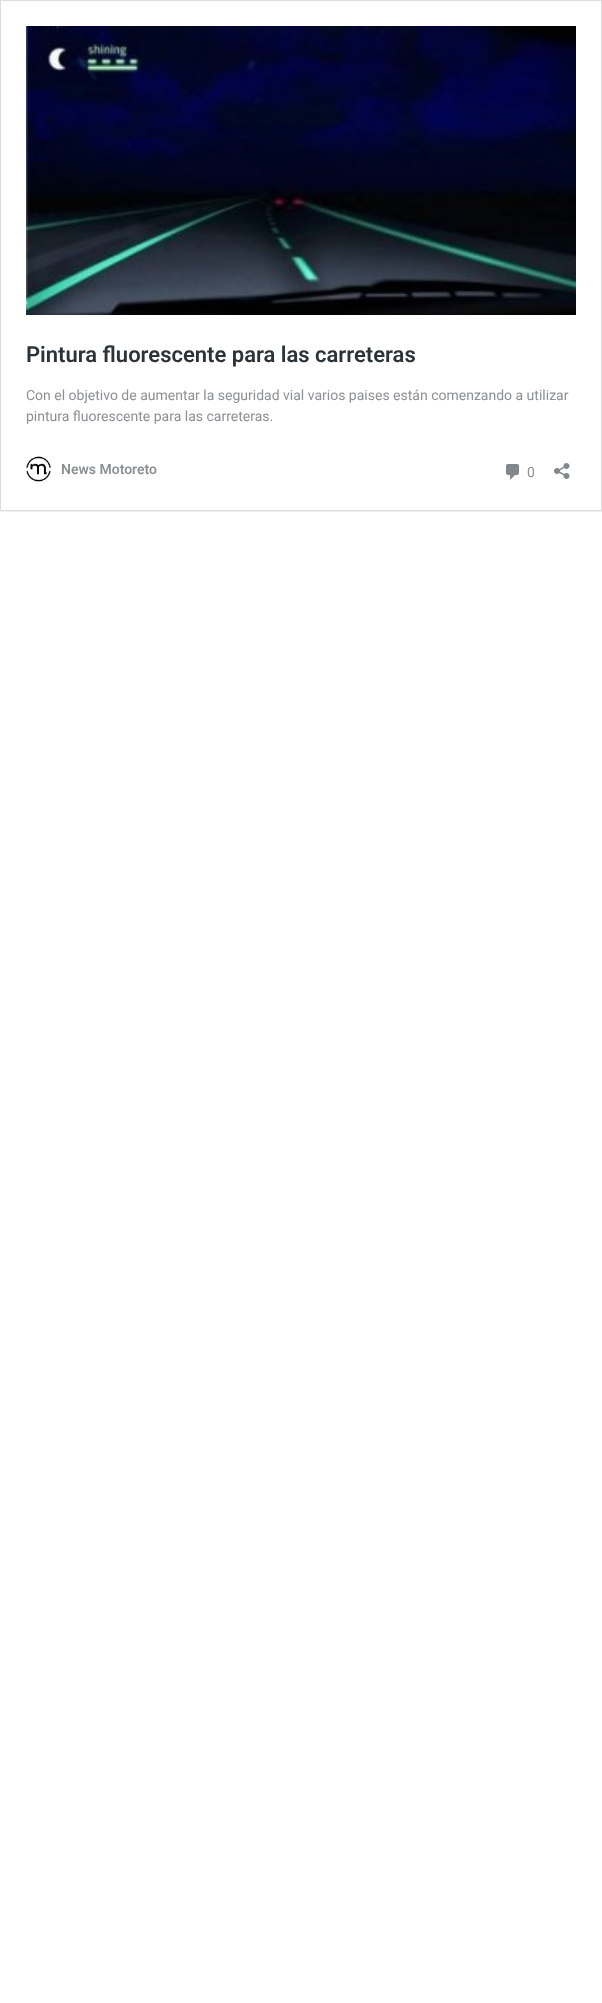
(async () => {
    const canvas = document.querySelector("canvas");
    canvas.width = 602;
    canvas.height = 2003;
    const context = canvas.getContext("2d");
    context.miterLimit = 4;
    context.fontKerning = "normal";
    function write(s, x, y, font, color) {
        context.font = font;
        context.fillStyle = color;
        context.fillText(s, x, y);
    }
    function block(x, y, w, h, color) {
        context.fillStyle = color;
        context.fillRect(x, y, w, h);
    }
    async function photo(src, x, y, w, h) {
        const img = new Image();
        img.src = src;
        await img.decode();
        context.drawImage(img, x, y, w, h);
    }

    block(0, 0, 602, 2003, "rgb(255, 255, 255)");
    context.save();
    context.beginPath();
    context.rect(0, 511, 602, 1);
    context.clip();
    context.fillStyle = "rgba(0, 0, 0, 0.05)";
    context.filter = "blur(0.5px)";
    context.beginPath();
    context.rect(0, 1, 602, 511);
    context.fill();
    context.filter = "none";
    context.restore();
    context.strokeStyle = "rgb(220, 220, 222)";
    context.strokeRect(0.5, 0.5, 601, 510);
    await photo("media/1.png", 26, 26, 550, 289);
    write("Pintura fluorescente para las carreteras", 26, 362, "600 22px Roboto", "rgb(44, 51, 56)");
    write("Con el objetivo de aumentar la seguridad vial varios paises están comenzando a utilizar", 26, 400, "14px Roboto", "rgb(140, 143, 148)");
    write("pintura fluorescente para las carreteras.", 26, 421, "14px Roboto", "rgb(140, 143, 148)");
    await photo("media/2.png", 26, 456, 25, 26);
    write("News Motoreto", 61, 474, "600 14px Roboto", "rgb(140, 143, 148)");
    await photo("media/3.png", 506, 464, 13, 16);
    write("0", 527, 477, "14px Roboto", "rgb(140, 143, 148)");
    await photo("media/4.png", 554, 463, 16, 16);
})();
